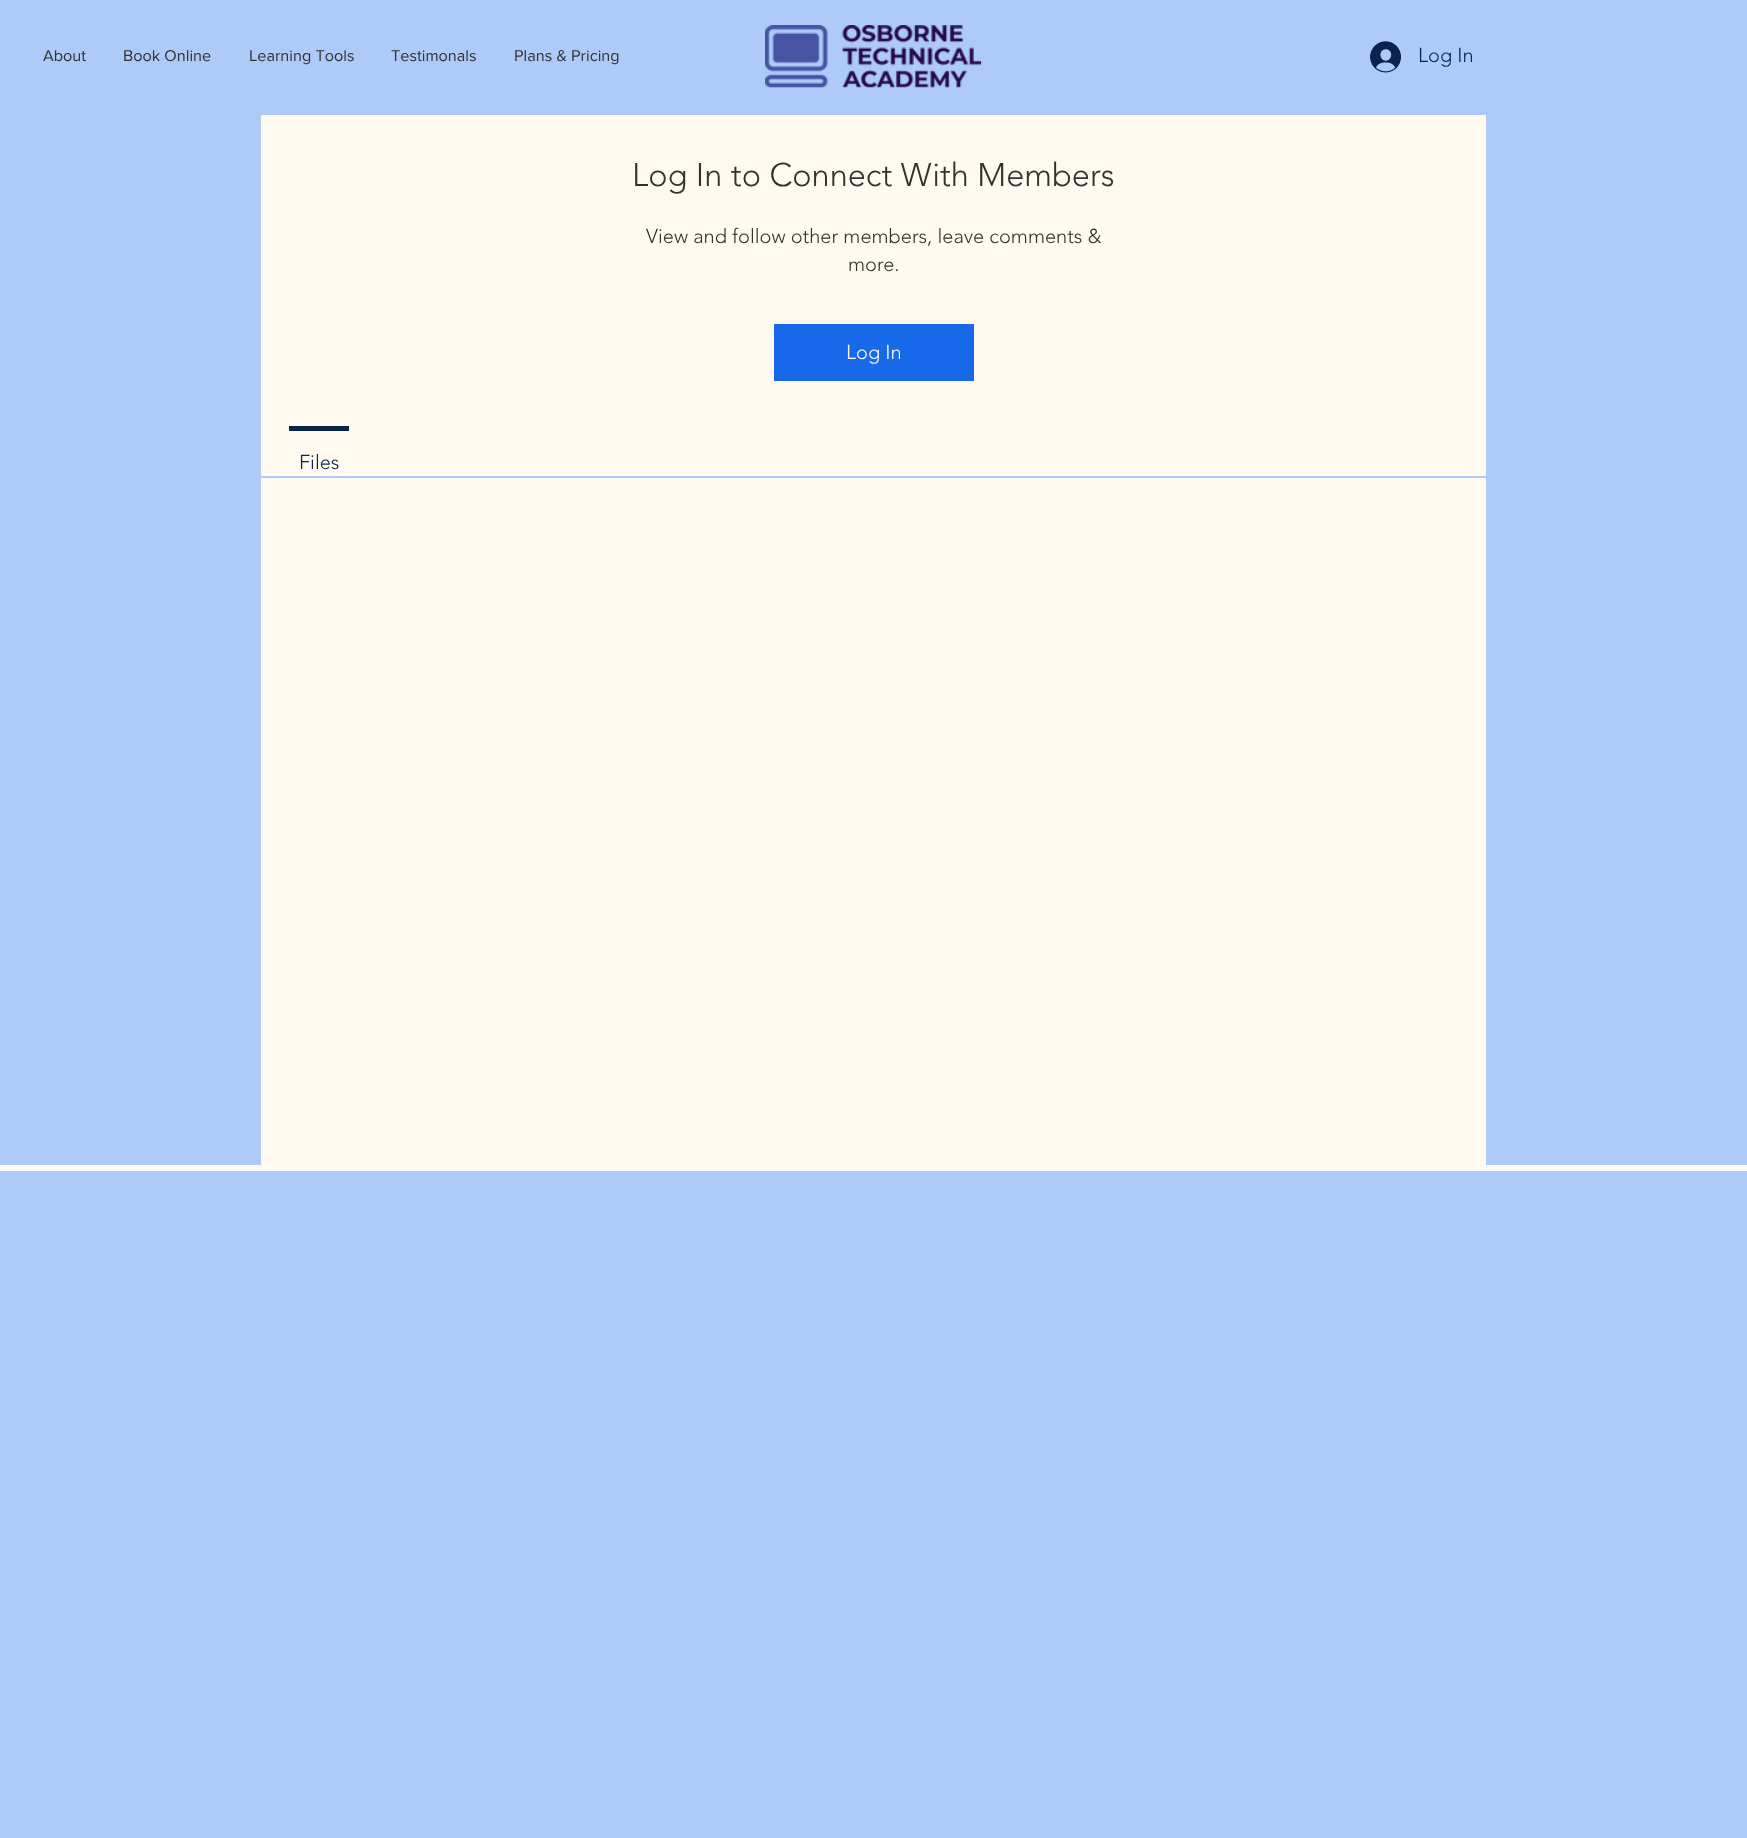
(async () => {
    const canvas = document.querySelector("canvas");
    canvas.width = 1747;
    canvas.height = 1838;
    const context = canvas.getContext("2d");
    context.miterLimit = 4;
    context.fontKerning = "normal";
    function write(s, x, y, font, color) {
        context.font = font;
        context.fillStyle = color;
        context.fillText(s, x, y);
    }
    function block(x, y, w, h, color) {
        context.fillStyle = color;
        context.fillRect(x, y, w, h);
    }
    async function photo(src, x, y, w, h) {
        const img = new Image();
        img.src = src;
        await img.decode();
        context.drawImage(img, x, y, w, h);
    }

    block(0, 0, 1747, 1838, "rgb(173, 202, 248)");
    write("About", 43, 61, "16.25px 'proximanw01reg'", "rgb(51, 50, 48)");
    write("Book Online", 123, 61, "16.25px 'proximanw01reg'", "rgb(51, 50, 48)");
    write("Learning Tools", 249, 61, "16.25px 'proximanw01reg'", "rgb(51, 50, 48)");
    write("Testimonals", 391, 61, "16.25px 'proximanw01reg'", "rgb(51, 50, 48)");
    write("Plans & Pricing", 514, 61, "16.25px 'proximanw01reg'", "rgb(51, 50, 48)");
    await photo("media/1.png", 765, 25, 217, 63);
    await photo("media/2.png", 1370, 41, 31, 32);
    write("Log In", 1418, 62, "300 20px 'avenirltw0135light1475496'", "rgb(8, 35, 78)");
    block(261, 115, 1225, 361, "rgb(254, 250, 240)");
    write("Log In to Connect With Members", 632, 186, "300 32.5px 'avenirltw0135light1475496'", "rgb(51, 50, 48)");
    write("View and follow other members, leave comments &", 646, 243, "300 20px 'avenirltw0135light1475496'", "rgb(51, 50, 48)");
    write("more.", 848, 271, "300 20px 'avenirltw0135light1475496'", "rgb(51, 50, 48)");
    block(774, 324, 200, 57, "rgb(23, 105, 234)");
    write("Log In", 846, 359, "300 20px 'avenirltw0135light1475496'", "rgb(254, 250, 240)");
    block(289, 426, 60, 5, "rgb(8, 35, 78)");
    write("Files", 299, 469, "300 20px 'avenirltw0135light1475496'", "rgb(8, 35, 78)");
    block(261, 478, 1225, 687, "rgb(254, 250, 240)");
    block(0, 1165, 1747, 6, "rgb(254, 250, 240)");
})();
